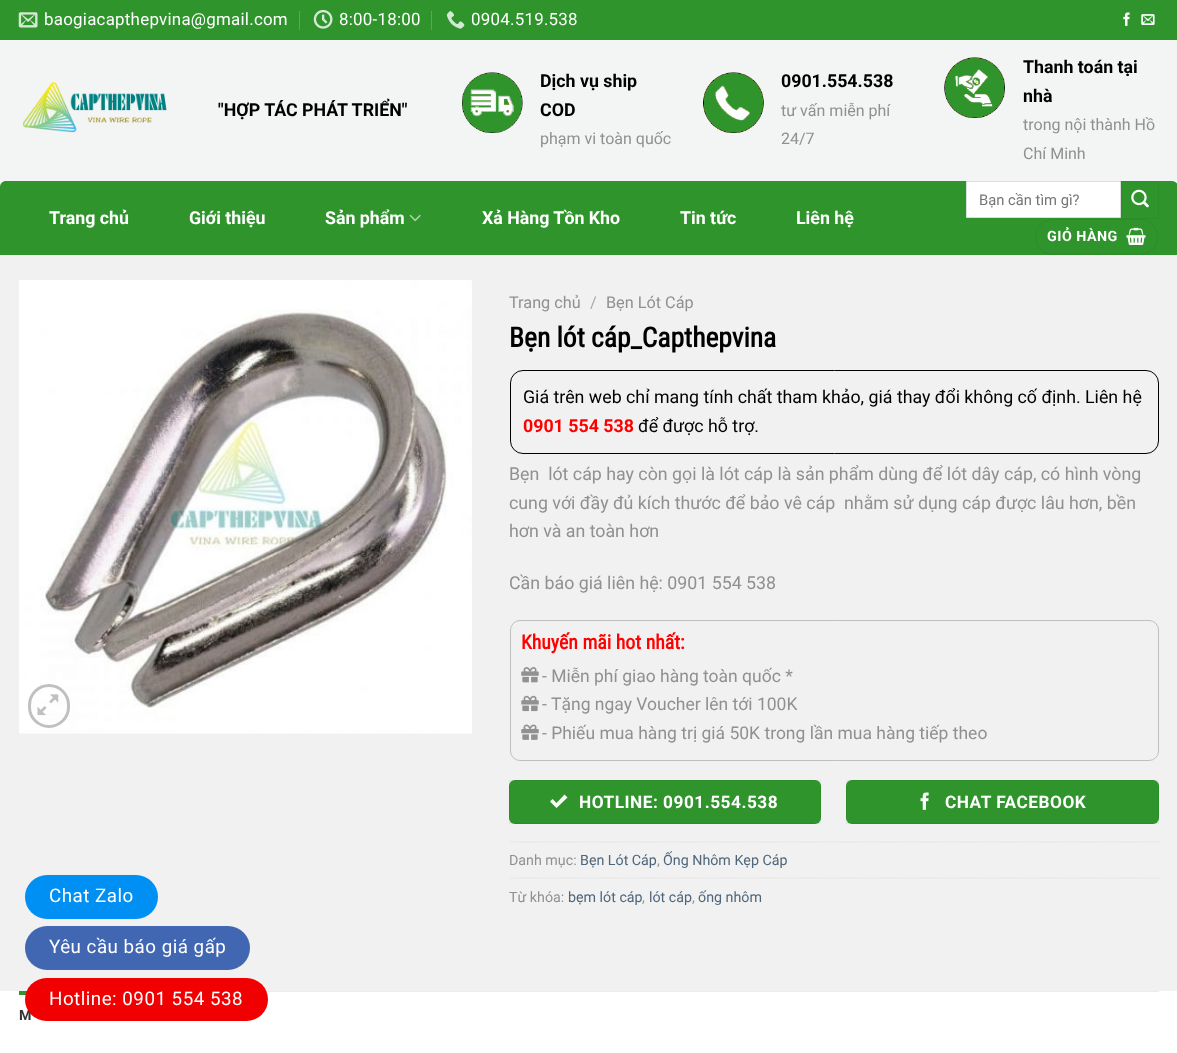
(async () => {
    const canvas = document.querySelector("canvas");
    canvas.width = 1177;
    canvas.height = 1053;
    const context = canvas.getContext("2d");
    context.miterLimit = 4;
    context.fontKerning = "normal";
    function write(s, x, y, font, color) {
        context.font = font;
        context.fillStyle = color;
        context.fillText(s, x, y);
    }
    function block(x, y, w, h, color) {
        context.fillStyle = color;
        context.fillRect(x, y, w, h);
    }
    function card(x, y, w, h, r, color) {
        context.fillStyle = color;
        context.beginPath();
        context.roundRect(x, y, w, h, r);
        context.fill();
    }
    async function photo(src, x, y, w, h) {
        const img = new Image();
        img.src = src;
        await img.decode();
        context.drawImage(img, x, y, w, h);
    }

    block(0, 0, 1177, 1053, "rgb(255, 255, 255)");
    block(0, 0, 1177, 40, "rgb(46, 148, 43)");
    await photo("media/1.png", 18, 12, 20, 16);
    context.letterSpacing = "0.25px";
    write("baogiacapthepvina@gmail.com", 44, 25, "16.9px Roboto", "rgb(255, 255, 255)");
    block(299, 11, 1, 19, "rgb(88, 169, 85)");
    await photo("media/2.png", 313, 9, 20, 20);
    write("8:00-18:00", 339, 25, "16.9px Roboto", "rgb(255, 255, 255)");
    block(431, 11, 1, 19, "rgb(88, 169, 85)");
    await photo("media/3.png", 446, 11, 19, 18);
    write("0904.519.538", 471, 25, "16.9px Roboto", "rgb(255, 255, 255)");
    await photo("media/4.png", 1123, 12, 7, 14);
    await photo("media/5.png", 1141, 14, 14, 11);
    block(0, 40, 1177, 141, "rgb(243, 244, 244)");
    await photo("media/6.png", 22, 82, 145, 51);
    context.letterSpacing = "0px";
    write("\"HỢP TÁC PHÁT TRIỂN\"", 218, 116, "bold 17.8px Roboto", "rgb(0, 0, 0)");
    await photo("media/7.png", 462, 72, 61, 61);
    write("Dịch vụ ship", 540, 87, "bold 17.8px Roboto", "rgb(0, 0, 0)");
    write("COD", 540, 116, "bold 17.8px Roboto", "rgb(0, 0, 0)");
    write("phạm vi toàn quốc", 540, 144, "16px Roboto", "rgb(144, 144, 144)");
    await photo("media/8.png", 703, 72, 61, 61);
    write("0901.554.538", 781, 87, "bold 17.8px Roboto", "rgb(0, 0, 0)");
    write("tư vấn miễn phí", 781, 116, "16px Roboto", "rgb(144, 144, 144)");
    write("24/7", 781, 144, "16px Roboto", "rgb(144, 144, 144)");
    await photo("media/9.png", 944, 57, 61, 61);
    write("Thanh toán tại", 1023, 73, "bold 17.8px Roboto", "rgb(0, 0, 0)");
    write("nhà", 1023, 102, "bold 17.8px Roboto", "rgb(0, 0, 0)");
    write("trong nội thành Hồ", 1023, 130, "16px Roboto", "rgb(144, 144, 144)");
    write("Chí Minh", 1023, 159, "16px Roboto", "rgb(144, 144, 144)");
    context.fillStyle = "rgb(46, 148, 43)";
    context.beginPath();
    context.moveTo(6, 181);
    context.lineTo(1172, 181);
    context.bezierCurveTo(1175.5, 181, 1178, 183.5, 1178, 187);
    context.lineTo(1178, 255);
    context.lineTo(0, 255);
    context.lineTo(0, 187);
    context.bezierCurveTo(0, 183.5, 2.5, 181, 6, 181);
    context.closePath();
    context.fill();
    write("Trang chủ", 49, 224, "bold 17.8px Roboto", "rgb(255, 255, 255)");
    write("Giới thiệu", 189, 224, "bold 17.8px Roboto", "rgb(255, 255, 255)");
    write("Sản phẩm", 325, 224, "bold 17.8px Roboto", "rgb(255, 255, 255)");
    await photo("media/10.png", 409, 214, 12, 8);
    write("Xả Hàng Tồn Kho", 482, 224, "bold 17.8px Roboto", "rgb(255, 255, 255)");
    write("Tin tức", 680, 224, "bold 17.8px Roboto", "rgb(255, 255, 255)");
    write("Liên hệ", 796, 224, "bold 17.8px Roboto", "rgb(255, 255, 255)");
    context.beginPath();
    context.rect(966.5, 181.5, 154, 36);
    context.fill();
    context.strokeStyle = "rgb(221, 221, 221)";
    context.stroke();
    write("Bạn cần tìm gì?", 979, 205, "14.75px Roboto", "rgb(117, 117, 117)");
    context.strokeStyle = "rgb(44, 141, 41)";
    context.strokeRect(1121.5, 181.5, 37, 37);
    await photo("media/11.png", 1131, 189, 18, 19);
    context.beginPath();
    context.roundRect(1035.5, 219.5, 122, 35, 17.5);
    context.stroke();
    context.letterSpacing = "0.5px";
    write("GIỎ HÀNG", 1047, 241, "bold 14.25px Roboto", "rgb(255, 255, 255)");
    await photo("media/12.png", 1126, 227, 20, 18);
    block(0, 255, 1177, 736, "rgb(241, 241, 241)");
    await photo("media/13.png", 19, 280, 453, 454);
    context.beginPath();
    context.roundRect(29.5, 685.5, 39, 41, 19.5);
    context.strokeStyle = "rgb(192, 192, 192)";
    context.lineWidth = 3;
    context.stroke();
    await photo("media/14.png", 37, 694, 22, 22);
    context.letterSpacing = "0px";
    write("Trang chủ", 509, 308, "16.25px Roboto", "rgb(144, 144, 144)");
    write("/", 590, 308, "16.25px Roboto", "rgb(169, 169, 169)");
    write("Bẹn Lót Cáp", 606, 308, "16.25px Roboto", "rgb(144, 144, 144)");
    write("Bẹn lót cáp_Capthepvina", 509, 347, "bold 27.5px Roboto Condensed", "rgb(0, 0, 0)");
    context.beginPath();
    context.roundRect(510.5, 370.5, 648, 83, 12.5);
    context.strokeStyle = "rgb(0, 0, 0)";
    context.lineWidth = 1;
    context.stroke();
    write("Giá trên web chỉ mang tính chất tham khảo, giá thay đổi không cố định. Liên hệ", 523, 403, "17.8px Roboto", "rgb(0, 0, 0)");
    write("0901 554 538", 523, 432, "bold 17.8px Roboto", "rgb(255, 0, 0)");
    write("để được hỗ trợ.", 638, 432, "17.8px Roboto", "rgb(0, 0, 0)");
    write("Bẹn  lót cáp hay còn gọi là lót cáp là sản phẩm dùng để lót dây cáp, có hình vòng", 509, 480, "17.8px Roboto", "rgb(144, 144, 144)");
    write("cung với đầy đủ kích thước để bảo vê cáp  nhằm sử dụng cáp được lâu hơn, bền", 509, 509, "17.8px Roboto", "rgb(144, 144, 144)");
    write("hơn và an toàn hơn", 509, 537, "17.8px Roboto", "rgb(144, 144, 144)");
    write("Cần báo giá liên hệ: 0901 554 538", 509, 589, "17.8px Roboto", "rgb(144, 144, 144)");
    context.beginPath();
    context.roundRect(510.5, 620.5, 648, 140, 9.5);
    context.strokeStyle = "rgb(191, 191, 191)";
    context.stroke();
    write("Khuyến mãi hot nhất:", 521, 649, "bold 19.75px Roboto Condensed", "rgb(255, 0, 0)");
    await photo("media/15.png", 521, 667, 18, 16);
    write("- Miễn phí giao hàng toàn quốc *", 542, 682, "17.5px Roboto", "rgb(144, 144, 144)");
    await photo("media/16.png", 521, 695, 18, 17);
    write("-", 542, 710, "17.5px Roboto", "rgb(144, 144, 144)");
    write("Tặng ngay Voucher lên tới 100K", 551, 710, "17.5px Roboto", "rgb(144, 144, 144)");
    await photo("media/17.png", 521, 724, 18, 16);
    write("- Phiếu mua hàng trị giá 50K trong lần mua hàng tiếp theo", 542, 739, "17.5px Roboto", "rgb(144, 144, 144)");
    card(509, 780, 312, 44, 6, "rgb(46, 148, 43)");
    context.strokeStyle = "rgba(0, 0, 0, 0.05)";
    context.strokeRect(509.5, 780.5, 311, 43);
    context.fillStyle = "rgb(255, 255, 255)";
    context.beginPath();
    context.moveTo(564.5, 794.5);
    context.lineTo(556.5, 803);
    context.lineTo(552.5, 799);
    context.lineTo(550, 801.5);
    context.lineTo(556.5, 808);
    context.lineTo(567.5, 797.5);
    context.closePath();
    context.fill();
    context.letterSpacing = "0.5px";
    write("HOTLINE: 0901.554.538", 579, 808, "bold 17.25px Roboto", "rgb(255, 255, 255)");
    card(846, 780, 313, 44, 6, "rgb(46, 148, 43)");
    context.strokeRect(846.5, 780.5, 312, 43);
    await photo("media/18.png", 920, 792, 9, 18);
    write("CHAT FACEBOOK", 945, 808, "bold 17.25px Roboto", "rgb(255, 255, 255)");
    context.beginPath();
    context.moveTo(510, 842);
    context.lineTo(1159, 842);
    context.strokeStyle = "rgb(221, 221, 221)";
    context.lineWidth = 1.2;
    context.setLineDash([1.25, 1.25]);
    context.stroke();
    context.letterSpacing = "0px";
    write("Danh mục:", 509, 865, "14.25px Roboto", "rgb(144, 144, 144)");
    write("Bẹn Lót Cáp", 580, 865, "14.25px Roboto", "rgb(78, 101, 123)");
    write(",", 657, 865, "14.25px Roboto", "rgb(144, 144, 144)");
    write("Ống Nhôm Kẹp Cáp", 663, 865, "14.25px Roboto", "rgb(78, 101, 123)");
    context.beginPath();
    context.moveTo(510, 878);
    context.lineTo(1159, 878);
    context.stroke();
    write("Từ khóa:", 509, 902, "14.25px Roboto", "rgb(144, 144, 144)");
    write("bẹm lót cáp", 568, 902, "14.25px Roboto", "rgb(78, 101, 123)");
    write(",", 642, 902, "14.25px Roboto", "rgb(144, 144, 144)");
    write("lót cáp", 649, 902, "14.25px Roboto", "rgb(78, 101, 123)");
    write(",", 692, 902, "14.25px Roboto", "rgb(144, 144, 144)");
    write("ống nhôm", 698, 902, "14.25px Roboto", "rgb(78, 101, 123)");
    block(266, 991, 893, 1, "rgb(236, 236, 236)");
    block(19, 991, 8, 4, "rgb(46, 148, 43)");
    context.letterSpacing = "0.25px";
    write("M", 19, 1020, "bold 14.25px Roboto", "rgb(53, 53, 53)");
    card(25, 875, 133, 44, 22, "rgb(0, 143, 243)");
    context.letterSpacing = "0.5px";
    write("Chat Zalo", 49, 902, "18.75px Roboto", "rgb(255, 255, 255)");
    card(25, 926, 225, 44, 22, "rgb(66, 103, 178)");
    write("Yêu cầu báo giá gấp", 49, 953, "18.75px Roboto", "rgb(255, 255, 255)");
    card(25, 978, 243, 43, 21.5, "rgb(240, 0, 0)");
    write("Hotline: 0901 554 538", 49, 1005, "18.75px Roboto", "rgb(255, 255, 255)");
})();
